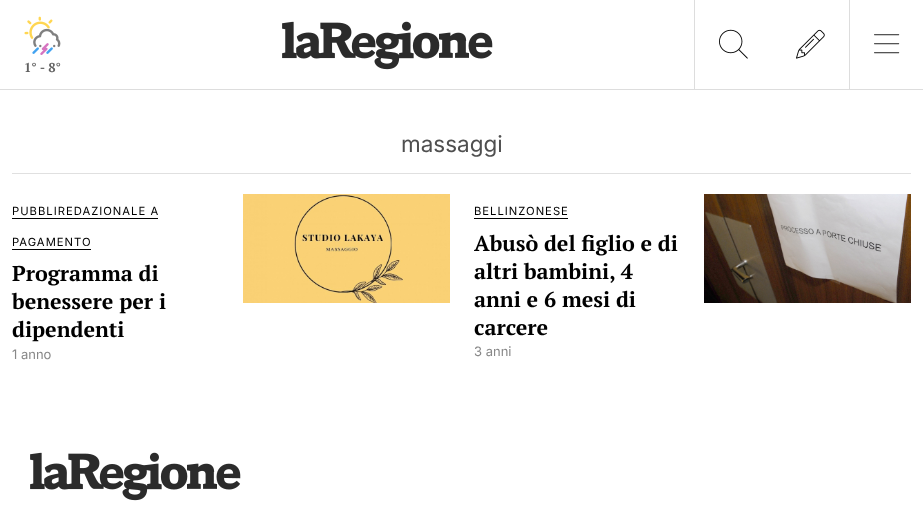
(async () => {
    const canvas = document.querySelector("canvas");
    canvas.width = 923;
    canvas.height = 532;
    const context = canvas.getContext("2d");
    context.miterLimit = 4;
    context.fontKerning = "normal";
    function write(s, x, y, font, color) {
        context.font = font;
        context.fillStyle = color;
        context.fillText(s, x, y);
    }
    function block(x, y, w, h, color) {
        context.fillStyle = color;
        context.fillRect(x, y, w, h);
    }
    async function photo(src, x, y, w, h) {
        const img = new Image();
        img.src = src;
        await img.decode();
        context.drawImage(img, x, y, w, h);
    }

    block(0, 0, 923, 532, "rgb(255, 255, 255)");
    block(0, 89, 923, 1, "rgb(221, 221, 221)");
    await photo("media/1.png", 24, 16, 37, 39);
    write("1° - 8°", 24, 72, "bold 13px PT Serif", "rgb(97, 97, 97)");
    await photo("media/2.png", 282, 21, 211, 49);
    block(694, 0, 1, 90, "rgb(221, 221, 221)");
    await photo("media/3.png", 719, 29, 29, 30);
    await photo("media/4.png", 796, 29, 29, 30);
    block(849, 0, 1, 90, "rgb(221, 221, 221)");
    await photo("media/5.png", 874, 34, 26, 20);
    block(12, 173, 899, 1, "rgb(224, 224, 224)");
    write("massaggi", 401, 152, "22.5px Inter", "rgb(79, 79, 79)");
    context.letterSpacing = "1px";
    write("PUBBLIREDAZIONALE A", 12, 215, "11.25px Inter", "rgb(0, 0, 0)");
    block(12, 218, 146, 1, "rgb(0, 0, 0)");
    write("PAGAMENTO", 12, 246, "11.25px Inter", "rgb(0, 0, 0)");
    block(12, 249, 79, 1, "rgb(0, 0, 0)");
    context.letterSpacing = "0px";
    write("Programma di", 12, 281, "bold 21.5px PT Serif", "rgb(0, 0, 0)");
    write("benessere per i", 12, 309, "bold 21.5px PT Serif", "rgb(0, 0, 0)");
    write("dipendenti", 12, 337, "bold 21.5px PT Serif", "rgb(0, 0, 0)");
    write("1 anno", 12, 359, "13px Inter", "rgb(136, 136, 136)");
    await photo("media/6.png", 243, 194, 207, 109);
    context.letterSpacing = "1px";
    write("BELLINZONESE", 474, 215, "11.25px Inter", "rgb(0, 0, 0)");
    block(474, 218, 94, 1, "rgb(0, 0, 0)");
    context.letterSpacing = "0px";
    write("Abusò del figlio e di", 474, 251, "bold 21.5px PT Serif", "rgb(0, 0, 0)");
    write("altri bambini, 4", 474, 279, "bold 21.5px PT Serif", "rgb(0, 0, 0)");
    write("anni e 6 mesi di", 474, 307, "bold 21.5px PT Serif", "rgb(0, 0, 0)");
    write("carcere", 474, 335, "bold 21.5px PT Serif", "rgb(0, 0, 0)");
    write("3 anni", 474, 356, "13px Inter", "rgb(136, 136, 136)");
    await photo("media/7.png", 704, 194, 207, 109);
    await photo("media/2.png", 30, 452, 211, 49);
})();
